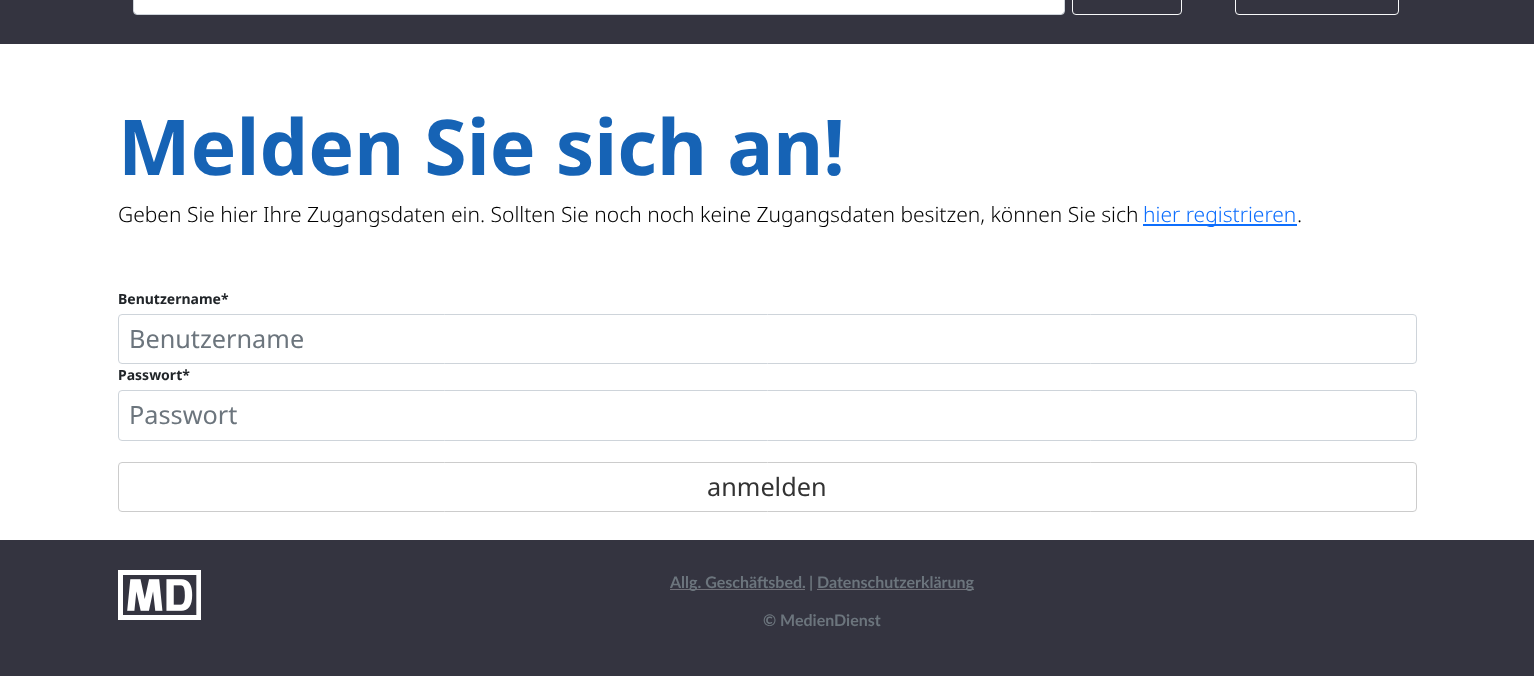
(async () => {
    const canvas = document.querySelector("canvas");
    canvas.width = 1534;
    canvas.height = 676;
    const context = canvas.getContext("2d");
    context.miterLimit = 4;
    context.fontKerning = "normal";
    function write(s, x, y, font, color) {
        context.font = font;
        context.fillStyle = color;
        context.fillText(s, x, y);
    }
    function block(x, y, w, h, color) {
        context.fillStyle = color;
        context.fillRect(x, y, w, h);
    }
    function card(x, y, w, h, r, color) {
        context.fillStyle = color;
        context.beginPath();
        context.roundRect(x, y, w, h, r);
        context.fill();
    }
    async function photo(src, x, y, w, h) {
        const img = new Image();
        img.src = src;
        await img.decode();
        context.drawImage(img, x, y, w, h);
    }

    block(0, 0, 1534, 676, "rgb(52, 52, 64)");
    card(134, -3, 930, 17, 2.5, "rgb(255, 255, 255)");
    context.beginPath();
    context.roundRect(133.5, -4.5, 931, 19, 3.5);
    context.strokeStyle = "rgb(206, 212, 218)";
    context.stroke();
    context.beginPath();
    context.roundRect(1072.5, -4.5, 109, 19, 3.5);
    context.strokeStyle = "rgb(248, 249, 250)";
    context.stroke();
    context.beginPath();
    context.roundRect(1235.5, -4.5, 163, 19, 3.5);
    context.stroke();
    block(0, 44, 1534, 496, "rgb(255, 255, 255)");
    write("Melden Sie sich an!", 118, 175, "bold 77px Noto Sans", "rgb(22, 99, 181)");
    write("Geben Sie hier Ihre Zugangsdaten ein. Sollten Sie noch noch keine Zugangsdaten besitzen, können Sie sich", 118, 222, "300 21px Noto Sans", "rgb(0, 0, 0)");
    block(1143, 224, 154, 2, "rgb(13, 110, 253)");
    write("hier registrieren", 1143, 222, "300 21px Noto Sans", "rgb(13, 110, 253)");
    write(".", 1297, 222, "300 21px Noto Sans", "rgb(0, 0, 0)");
    write("Benutzername*", 118, 304, "bold 14px Noto Sans", "rgb(33, 37, 41)");
    context.beginPath();
    context.roundRect(118.5, 314.5, 1298, 49, 3.5);
    context.strokeStyle = "rgb(206, 212, 218)";
    context.stroke();
    write("Benutzername", 129, 348, "25.25px Noto Sans", "rgb(108, 117, 125)");
    write("Passwort*", 118, 380, "bold 14px Noto Sans", "rgb(33, 37, 41)");
    context.beginPath();
    context.roundRect(118.5, 390.5, 1298, 50, 3.5);
    context.stroke();
    write("Passwort", 129, 424, "25.25px Noto Sans", "rgb(108, 117, 125)");
    context.beginPath();
    context.roundRect(118.5, 462.5, 1298, 49, 3.5);
    context.strokeStyle = "rgb(204, 204, 204)";
    context.stroke();
    write("anmelden", 707, 496, "25.25px Noto Sans", "rgb(51, 51, 51)");
    await photo("media/1.png", 118, 570, 83, 50);
    block(670, 589, 135, 1, "rgb(113, 113, 121)");
    write("Allg. Geschäftsbed.", 670, 588, "bold 16px Lato", "rgb(108, 117, 125)");
    write("|", 809, 588, "bold 16px Lato", "rgb(108, 117, 125)");
    block(817, 589, 157, 1, "rgb(113, 113, 121)");
    write("Datenschutzerklärung", 817, 588, "bold 16px Lato", "rgb(108, 117, 125)");
    write("© MedienDienst", 763, 626, "bold 16px Lato", "rgb(108, 117, 125)");
})();
